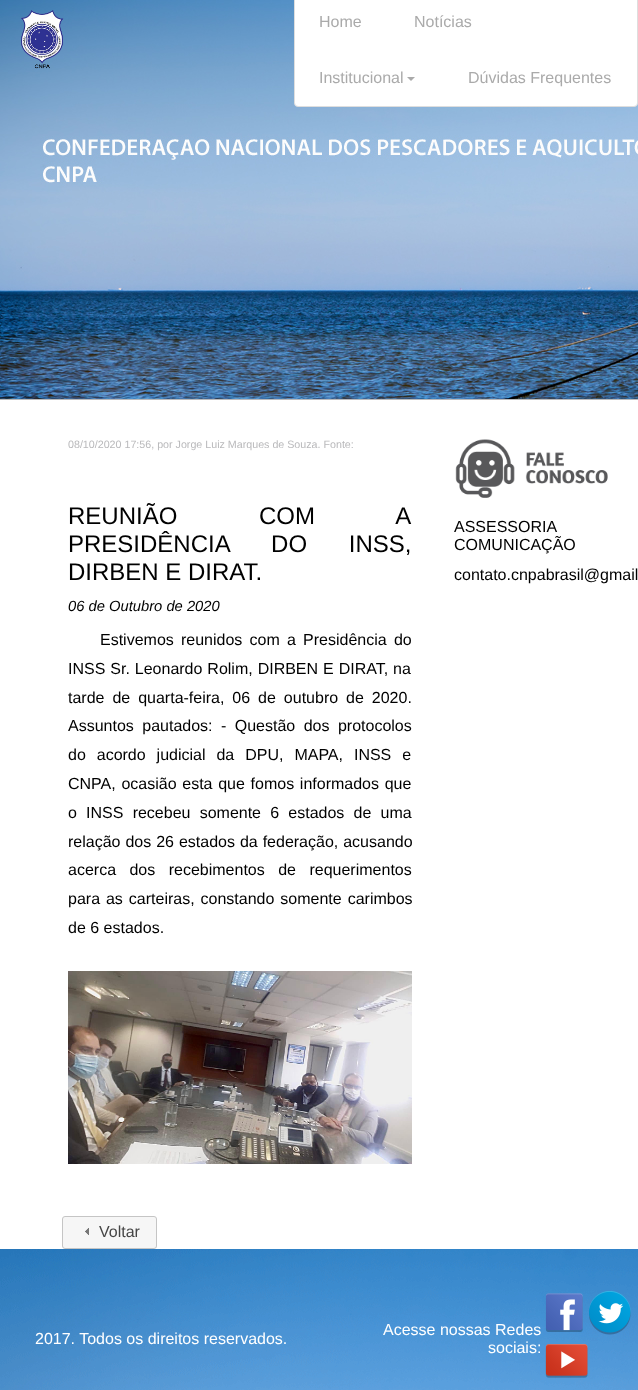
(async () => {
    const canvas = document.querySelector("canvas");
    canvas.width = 638;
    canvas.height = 1390;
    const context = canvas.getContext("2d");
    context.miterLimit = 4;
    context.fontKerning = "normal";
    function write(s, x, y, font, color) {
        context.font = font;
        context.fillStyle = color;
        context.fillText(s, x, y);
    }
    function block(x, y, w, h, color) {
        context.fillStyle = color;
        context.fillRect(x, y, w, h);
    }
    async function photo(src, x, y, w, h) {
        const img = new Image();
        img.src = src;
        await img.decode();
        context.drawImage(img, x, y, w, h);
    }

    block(0, 0, 638, 1390, "rgb(255, 255, 255)");
    await photo("media/1.png", 0, 0, 638, 399);
    block(0, 399, 638, 1, "rgb(185, 185, 187)");
    await photo("media/2.png", 21, 10, 43, 59);
    context.fillStyle = "rgb(255, 255, 255)";
    context.beginPath();
    context.roundRect(294.5, -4.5, 343, 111, 3.5);
    context.fill();
    context.strokeStyle = "rgb(222, 222, 222)";
    context.stroke();
    write("Home", 319, 27, "16px Liberation Sans", "rgb(170, 170, 170)");
    write("Notícias", 414, 27, "16px Liberation Sans", "rgb(170, 170, 170)");
    write("Institucional", 319, 83, "16px Liberation Sans", "rgb(170, 170, 170)");
    context.beginPath();
    context.moveTo(407, 77);
    context.lineTo(415, 77);
    context.lineTo(411, 81);
    context.closePath();
    context.fill();
    write("Dúvidas Frequentes", 468, 83, "16px Liberation Sans", "rgb(170, 170, 170)");
    write("08/10/2020 17:56, por Jorge Luiz Marques de Souza. Fonte:", 68, 448, "10.7px Liberation Sans", "rgb(185, 185, 187)");
    context.wordSpacing = "75px";
    write("REUNIÃO COM A", 68, 524, "24px Liberation Sans", "rgb(0, 0, 0)");
    context.wordSpacing = "35px";
    write("PRESIDÊNCIA DO INSS,", 68, 552, "24px Liberation Sans", "rgb(0, 0, 0)");
    context.wordSpacing = "0px";
    write("DIRBEN E DIRAT.", 68, 580, "24px Liberation Sans", "rgb(0, 0, 0)");
    write("06 de Outubro de 2020", 68, 611, "italic 14.75px Liberation Sans", "rgb(0, 0, 0)");
    context.wordSpacing = "2.75px";
    write("Estivemos reunidos com a Presidência do", 100, 645, "16px Liberation Sans", "rgb(0, 0, 0)");
    context.wordSpacing = "0.5px";
    write("INSS Sr. Leonardo Rolim, DIRBEN E DIRAT, na", 68, 674, "16px Liberation Sans", "rgb(0, 0, 0)");
    context.wordSpacing = "3.5px";
    write("tarde de quarta-feira, 06 de outubro de 2020.", 68, 703, "16px Liberation Sans", "rgb(0, 0, 0)");
    context.wordSpacing = "4px";
    write("Assuntos pautados:", 68, 731, "16px Liberation Sans", "rgb(0, 0, 0)");
    write("- Questão dos protocolos", 221, 731, "16px Liberation Sans", "rgb(0, 0, 0)");
    context.wordSpacing = "6.5px";
    write("do acordo judicial da DPU, MAPA, INSS e", 68, 760, "16px Liberation Sans", "rgb(0, 0, 0)");
    context.wordSpacing = "1.25px";
    write("CNPA, ocasião esta que fomos informados que", 68, 789, "16px Liberation Sans", "rgb(0, 0, 0)");
    context.wordSpacing = "4.75px";
    write("o INSS recebeu somente 6 estados de uma", 68, 818, "16px Liberation Sans", "rgb(0, 0, 0)");
    context.wordSpacing = "0.5px";
    write("relação dos 26 estados da federação, acusando", 68, 847, "16px Liberation Sans", "rgb(0, 0, 0)");
    context.wordSpacing = "9px";
    write("acerca dos recebimentos de requerimentos", 68, 875, "16px Liberation Sans", "rgb(0, 0, 0)");
    context.wordSpacing = "1.5px";
    write("para as carteiras, constando somente carimbos", 68, 904, "16px Liberation Sans", "rgb(0, 0, 0)");
    context.wordSpacing = "0px";
    write("de 6 estados.", 68, 933, "16px Liberation Sans", "rgb(0, 0, 0)");
    await photo("media/3.png", 68, 971, 344, 193);
    context.fillStyle = "rgb(246, 246, 246)";
    context.beginPath();
    context.roundRect(62.5, 1216.5, 94, 32, 2.5);
    context.fill();
    context.strokeStyle = "rgb(197, 197, 197)";
    context.stroke();
    await photo("media/4.png", 85, 1228, 4, 7);
    write("Voltar", 99, 1237, "16px Liberation Sans", "rgb(69, 69, 69)");
    await photo("media/5.png", 455, 439, 153, 59);
    context.wordSpacing = "90px";
    write("ASSESSORIA", 454, 532, "16px Liberation Sans", "rgb(0, 0, 0)");
    context.wordSpacing = "0px";
    write("COMUNICAÇÃO", 454, 550, "16px Liberation Sans", "rgb(0, 0, 0)");
    write("contato.cnpabrasil@gmail", 454, 580, "16px Liberation Sans", "rgb(0, 0, 0)");
    await photo("media/6.png", 0, 1249, 638, 141);
    write("2017. Todos os direitos reservados.", 35, 1344, "16px Liberation Sans", "rgb(255, 255, 255)");
    write("Acesse nossas Redes", 383, 1335, "16px Liberation Sans", "rgb(255, 255, 255)");
    write("sociais:", 488, 1353, "16px Liberation Sans", "rgb(255, 255, 255)");
    await photo("media/7.png", 545, 1293, 38, 39);
    await photo("media/8.png", 589, 1291, 42, 44);
    await photo("media/9.png", 545, 1344, 43, 34);
})();
